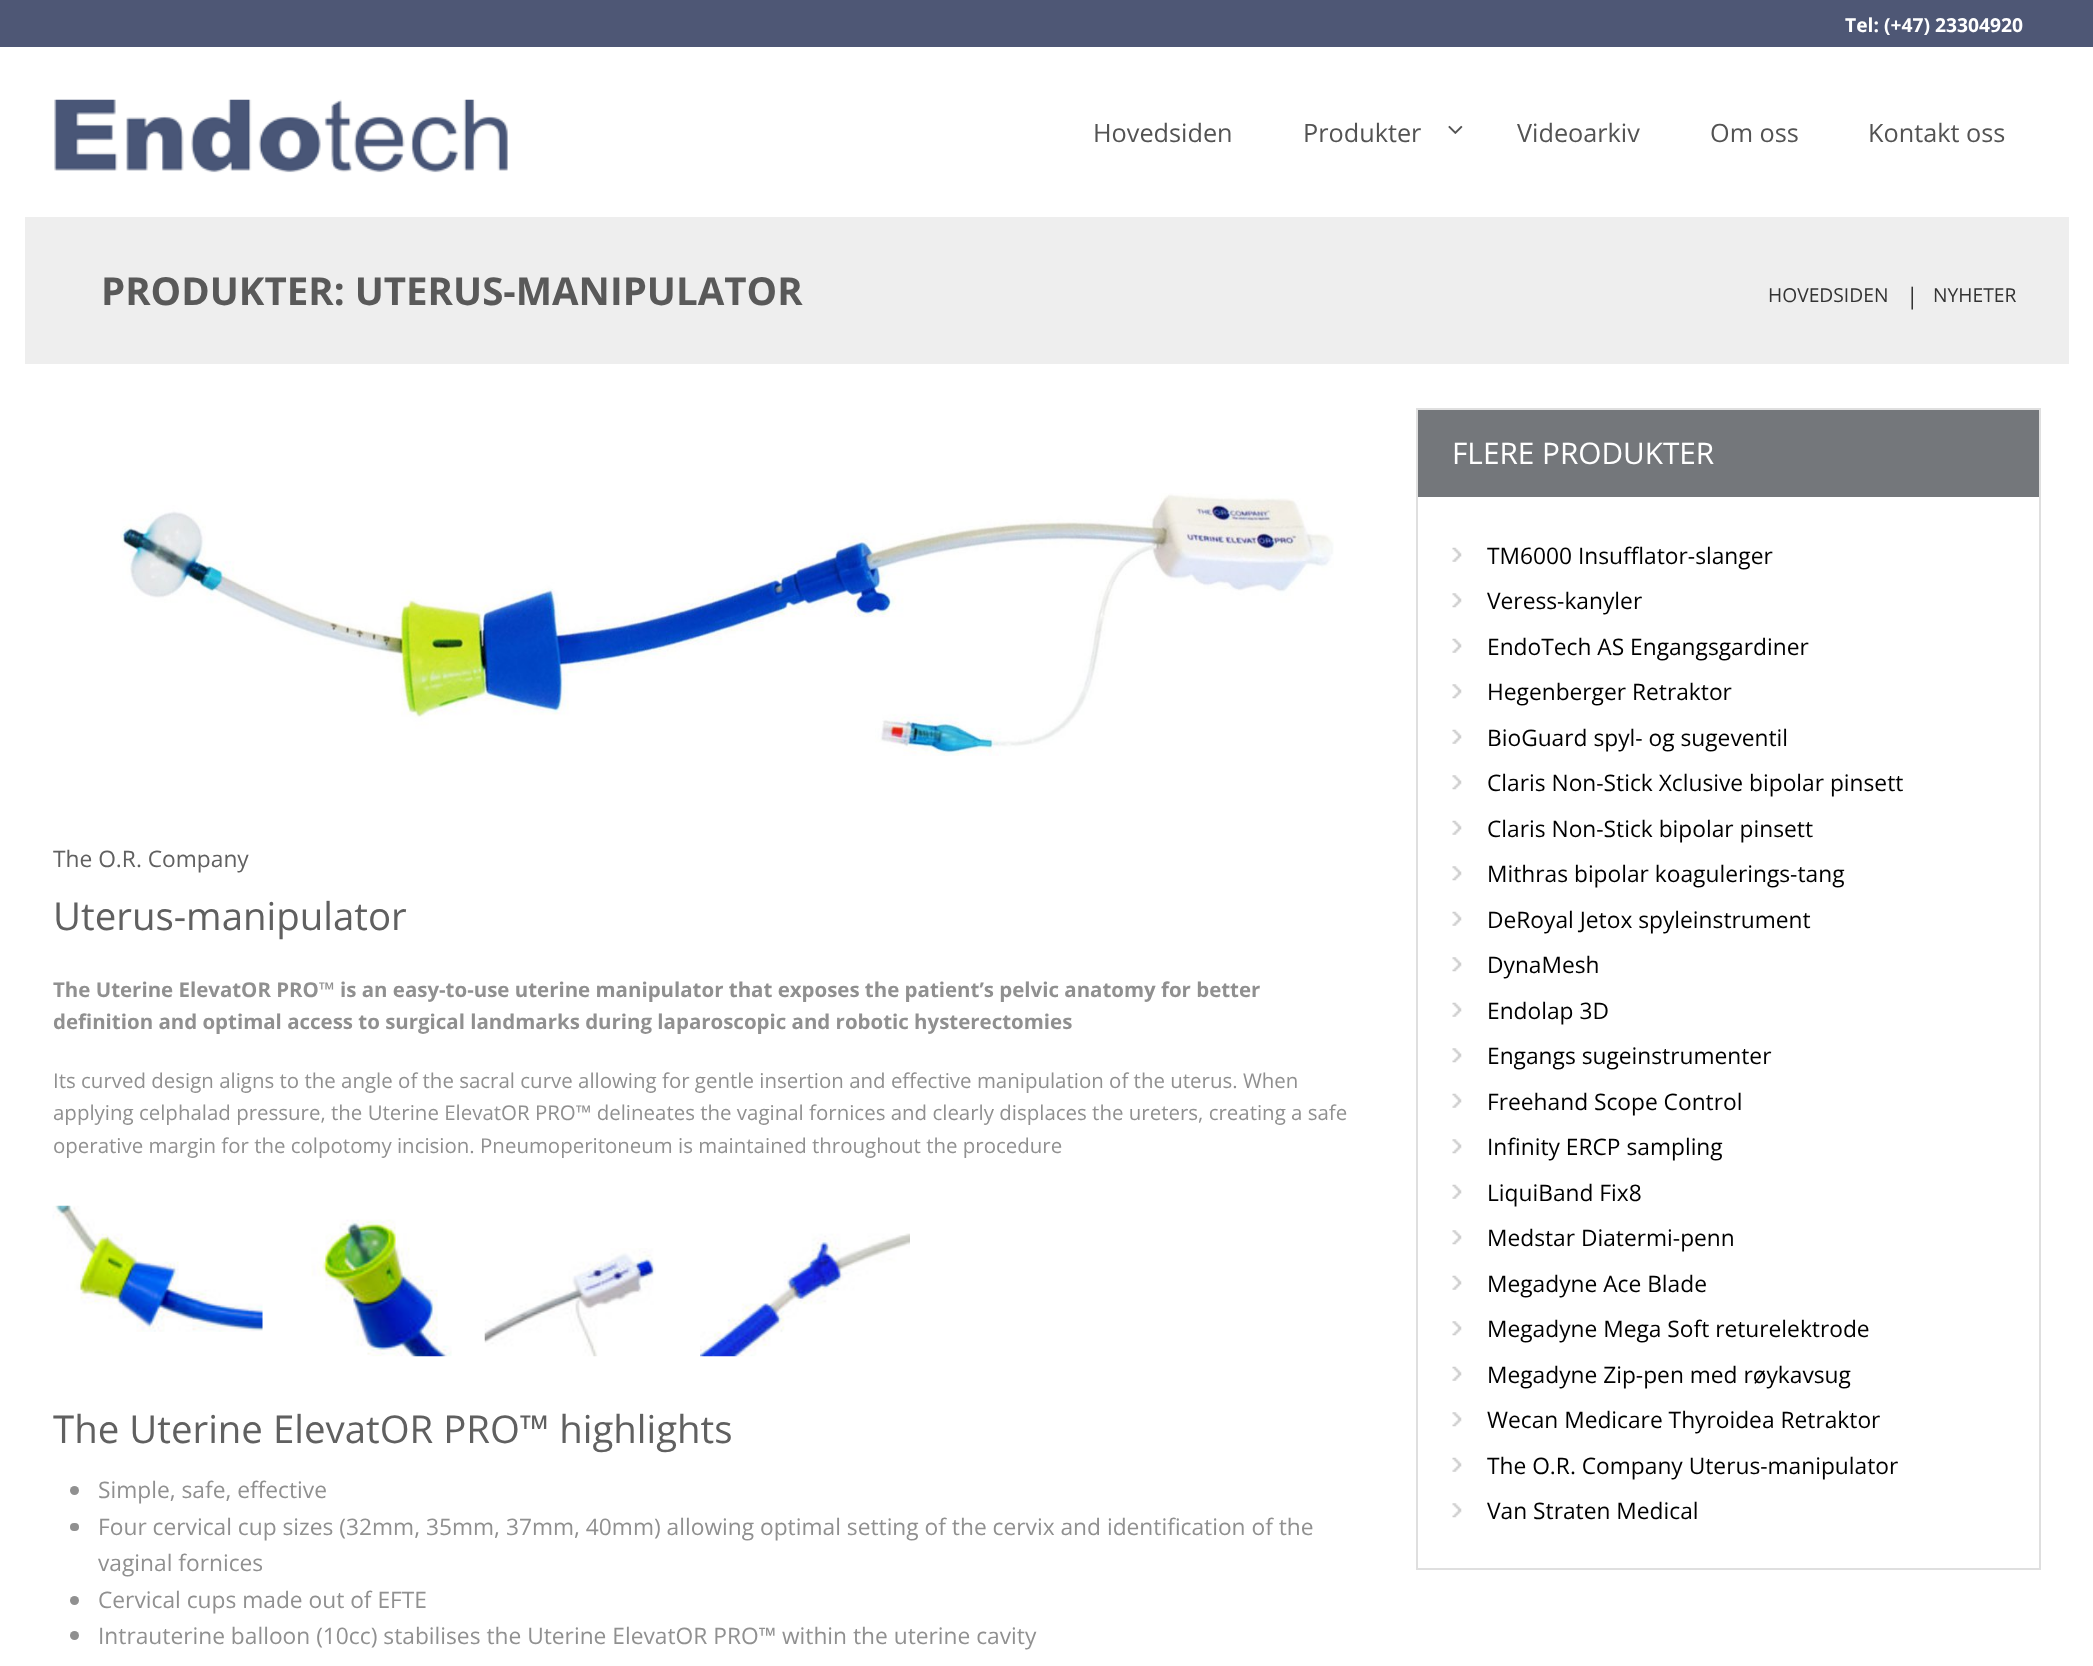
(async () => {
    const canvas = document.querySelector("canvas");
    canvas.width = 2093;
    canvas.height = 1666;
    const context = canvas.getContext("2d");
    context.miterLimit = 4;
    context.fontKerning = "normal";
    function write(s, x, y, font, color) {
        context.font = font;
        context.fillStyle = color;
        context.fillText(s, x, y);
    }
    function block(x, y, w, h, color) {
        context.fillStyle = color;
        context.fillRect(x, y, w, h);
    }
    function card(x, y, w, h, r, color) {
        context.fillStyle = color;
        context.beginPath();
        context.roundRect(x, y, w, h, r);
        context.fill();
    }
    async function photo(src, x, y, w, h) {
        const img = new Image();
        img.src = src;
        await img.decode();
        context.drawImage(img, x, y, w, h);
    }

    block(0, 0, 2093, 1666, "rgb(255, 255, 255)");
    block(0, 0, 2093, 47, "rgb(78, 87, 117)");
    write("Tel: (+47) 23304920", 1845, 32, "bold 19.25px Open Sans", "rgb(255, 255, 255)");
    await photo("media/1.png", 54, 99, 454, 74);
    write("Hovedsiden", 1093, 142, "25.25px Open Sans", "rgb(83, 83, 83)");
    write("Produkter", 1303, 142, "25.25px Open Sans", "rgb(83, 83, 83)");
    await photo("media/2.png", 1448, 125, 15, 9);
    write("Videoarkiv", 1517, 142, "25.25px Open Sans", "rgb(83, 83, 83)");
    write("Om oss", 1710, 142, "25.25px Open Sans", "rgb(83, 83, 83)");
    write("Kontakt oss", 1868, 142, "25.25px Open Sans", "rgb(83, 83, 83)");
    block(25, 217, 2044, 147, "rgb(238, 238, 238)");
    write("PRODUKTER: UTERUS-MANIPULATOR", 101, 305, "bold 38.5px Open Sans", "rgb(89, 89, 89)");
    write("HOVEDSIDEN", 1768, 302, "19.25px Open Sans", "rgb(51, 51, 51)");
    write("|", 1906, 304, "22.75px Open Sans", "rgb(51, 51, 51)");
    write("NYHETER", 1933, 302, "19.25px Open Sans", "rgb(51, 51, 51)");
    await photo("media/3.png", 120, 493, 1214, 263);
    write("The O.R. Company", 53, 867, "22.75px Open Sans", "rgb(96, 96, 96)");
    write("Uterus-manipulator", 53, 930, "38.4px Open Sans", "rgb(96, 96, 96)");
    write("The Uterine ElevatOR PRO™ is an easy-to-use uterine manipulator that exposes the patient’s pelvic anatomy for better", 53, 997, "bold 20.47px Open Sans", "rgb(144, 144, 144)");
    write("definition and optimal access to surgical landmarks during laparoscopic and robotic hysterectomies", 53, 1029, "bold 20.47px Open Sans", "rgb(144, 144, 144)");
    write("Its curved design aligns to the angle of the sacral curve allowing for gentle insertion and effective manipulation of the uterus. When", 53, 1088, "20.47px Open Sans", "rgb(144, 144, 144)");
    write("applying celphalad pressure, the Uterine ElevatOR PRO™ delineates the vaginal fornices and clearly displaces the ureters, creating a safe", 53, 1120, "20.47px Open Sans", "rgb(144, 144, 144)");
    write("operative margin for the colpotomy incision. Pneumoperitoneum is maintained throughout the procedure", 53, 1153, "20.47px Open Sans", "rgb(144, 144, 144)");
    await photo("media/4.png", 52, 1205, 211, 127);
    await photo("media/5.png", 311, 1219, 141, 138);
    await photo("media/6.png", 484, 1248, 172, 109);
    await photo("media/7.png", 700, 1233, 210, 124);
    write("The Uterine ElevatOR PRO™ highlights", 53, 1443, "38.4px Open Sans", "rgb(96, 96, 96)");
    context.fillStyle = "rgb(144, 144, 144)";
    context.beginPath();
    context.arc(74.5, 1490.5, 4.5, 0, Math.PI * 2);
    context.fill();
    write("Simple, safe, effective", 98, 1498, "22.75px Open Sans", "rgb(144, 144, 144)");
    card(70, 1523, 9, 8, 4, "rgb(144, 144, 144)");
    write("Four cervical cup sizes (32mm, 35mm, 37mm, 40mm) allowing optimal setting of the cervix and identification of the", 98, 1535, "22.75px Open Sans", "rgb(144, 144, 144)");
    write("vaginal fornices", 98, 1571, "22.75px Open Sans", "rgb(144, 144, 144)");
    context.beginPath();
    context.arc(74.5, 1600.5, 4.5, 0, Math.PI * 2);
    context.fill();
    write("Cervical cups made out of EFTE", 98, 1608, "22.75px Open Sans", "rgb(144, 144, 144)");
    context.beginPath();
    context.arc(74.5, 1635.5, 4.5, 0, Math.PI * 2);
    context.fill();
    write("Intrauterine balloon (10cc) stabilises the Uterine ElevatOR PRO™ within the uterine cavity", 98, 1644, "22.75px Open Sans", "rgb(144, 144, 144)");
    context.strokeStyle = "rgb(223, 223, 223)";
    context.lineWidth = 2;
    context.strokeRect(1417, 409, 623, 1160);
    block(1418, 410, 621, 87, "rgb(116, 119, 123)");
    write("FLERE PRODUKTER", 1452, 464, "29.75px Open Sans", "rgb(255, 255, 255)");
    await photo("media/8.png", 1452, 547, 10, 15);
    write("TM6000 Insufflator-slanger", 1487, 564, "22.75px Open Sans", "rgb(0, 0, 0)");
    await photo("media/9.png", 1452, 593, 10, 15);
    write("Veress-kanyler", 1487, 609, "22.75px Open Sans", "rgb(0, 0, 0)");
    await photo("media/8.png", 1452, 638, 10, 15);
    write("EndoTech AS Engangsgardiner", 1487, 655, "22.75px Open Sans", "rgb(0, 0, 0)");
    await photo("media/9.png", 1452, 684, 10, 15);
    write("Hegenberger Retraktor", 1487, 700, "22.75px Open Sans", "rgb(0, 0, 0)");
    await photo("media/8.png", 1452, 729, 10, 15);
    write("BioGuard spyl- og sugeventil", 1487, 746, "22.75px Open Sans", "rgb(0, 0, 0)");
    await photo("media/9.png", 1452, 775, 10, 15);
    write("Claris Non-Stick Xclusive bipolar pinsett", 1487, 791, "22.75px Open Sans", "rgb(0, 0, 0)");
    await photo("media/8.png", 1452, 820, 10, 15);
    write("Claris Non-Stick bipolar pinsett", 1487, 837, "22.75px Open Sans", "rgb(0, 0, 0)");
    await photo("media/9.png", 1452, 866, 10, 15);
    write("Mithras bipolar koagulerings-tang", 1487, 882, "22.75px Open Sans", "rgb(0, 0, 0)");
    await photo("media/8.png", 1452, 911, 10, 15);
    write("DeRoyal Jetox spyleinstrument", 1487, 928, "22.75px Open Sans", "rgb(0, 0, 0)");
    await photo("media/9.png", 1452, 957, 10, 15);
    write("DynaMesh", 1487, 973, "22.75px Open Sans", "rgb(0, 0, 0)");
    await photo("media/8.png", 1452, 1002, 10, 15);
    write("Endolap 3D", 1487, 1019, "22.75px Open Sans", "rgb(0, 0, 0)");
    await photo("media/9.png", 1452, 1048, 10, 15);
    write("Engangs sugeinstrumenter", 1487, 1064, "22.75px Open Sans", "rgb(0, 0, 0)");
    await photo("media/8.png", 1452, 1093, 10, 15);
    write("Freehand Scope Control", 1487, 1110, "22.75px Open Sans", "rgb(0, 0, 0)");
    await photo("media/9.png", 1452, 1139, 10, 15);
    write("Infinity ERCP sampling", 1487, 1155, "22.75px Open Sans", "rgb(0, 0, 0)");
    await photo("media/8.png", 1452, 1184, 10, 15);
    write("LiquiBand Fix8", 1487, 1201, "22.75px Open Sans", "rgb(0, 0, 0)");
    await photo("media/9.png", 1452, 1230, 10, 15);
    write("Medstar Diatermi-penn", 1487, 1246, "22.75px Open Sans", "rgb(0, 0, 0)");
    await photo("media/8.png", 1452, 1275, 10, 15);
    write("Megadyne Ace Blade", 1487, 1292, "22.75px Open Sans", "rgb(0, 0, 0)");
    await photo("media/9.png", 1452, 1321, 10, 15);
    write("Megadyne Mega Soft returelektrode", 1487, 1337, "22.75px Open Sans", "rgb(0, 0, 0)");
    await photo("media/8.png", 1452, 1366, 10, 15);
    write("Megadyne Zip-pen med røykavsug", 1487, 1383, "22.75px Open Sans", "rgb(0, 0, 0)");
    await photo("media/9.png", 1452, 1412, 10, 15);
    write("Wecan Medicare Thyroidea Retraktor", 1487, 1428, "22.75px Open Sans", "rgb(0, 0, 0)");
    await photo("media/8.png", 1452, 1457, 10, 15);
    write("The O.R. Company Uterus-manipulator", 1487, 1474, "22.75px Open Sans", "rgb(0, 0, 0)");
    await photo("media/9.png", 1452, 1503, 10, 15);
    write("Van Straten Medical", 1487, 1519, "22.75px Open Sans", "rgb(0, 0, 0)");
})();
